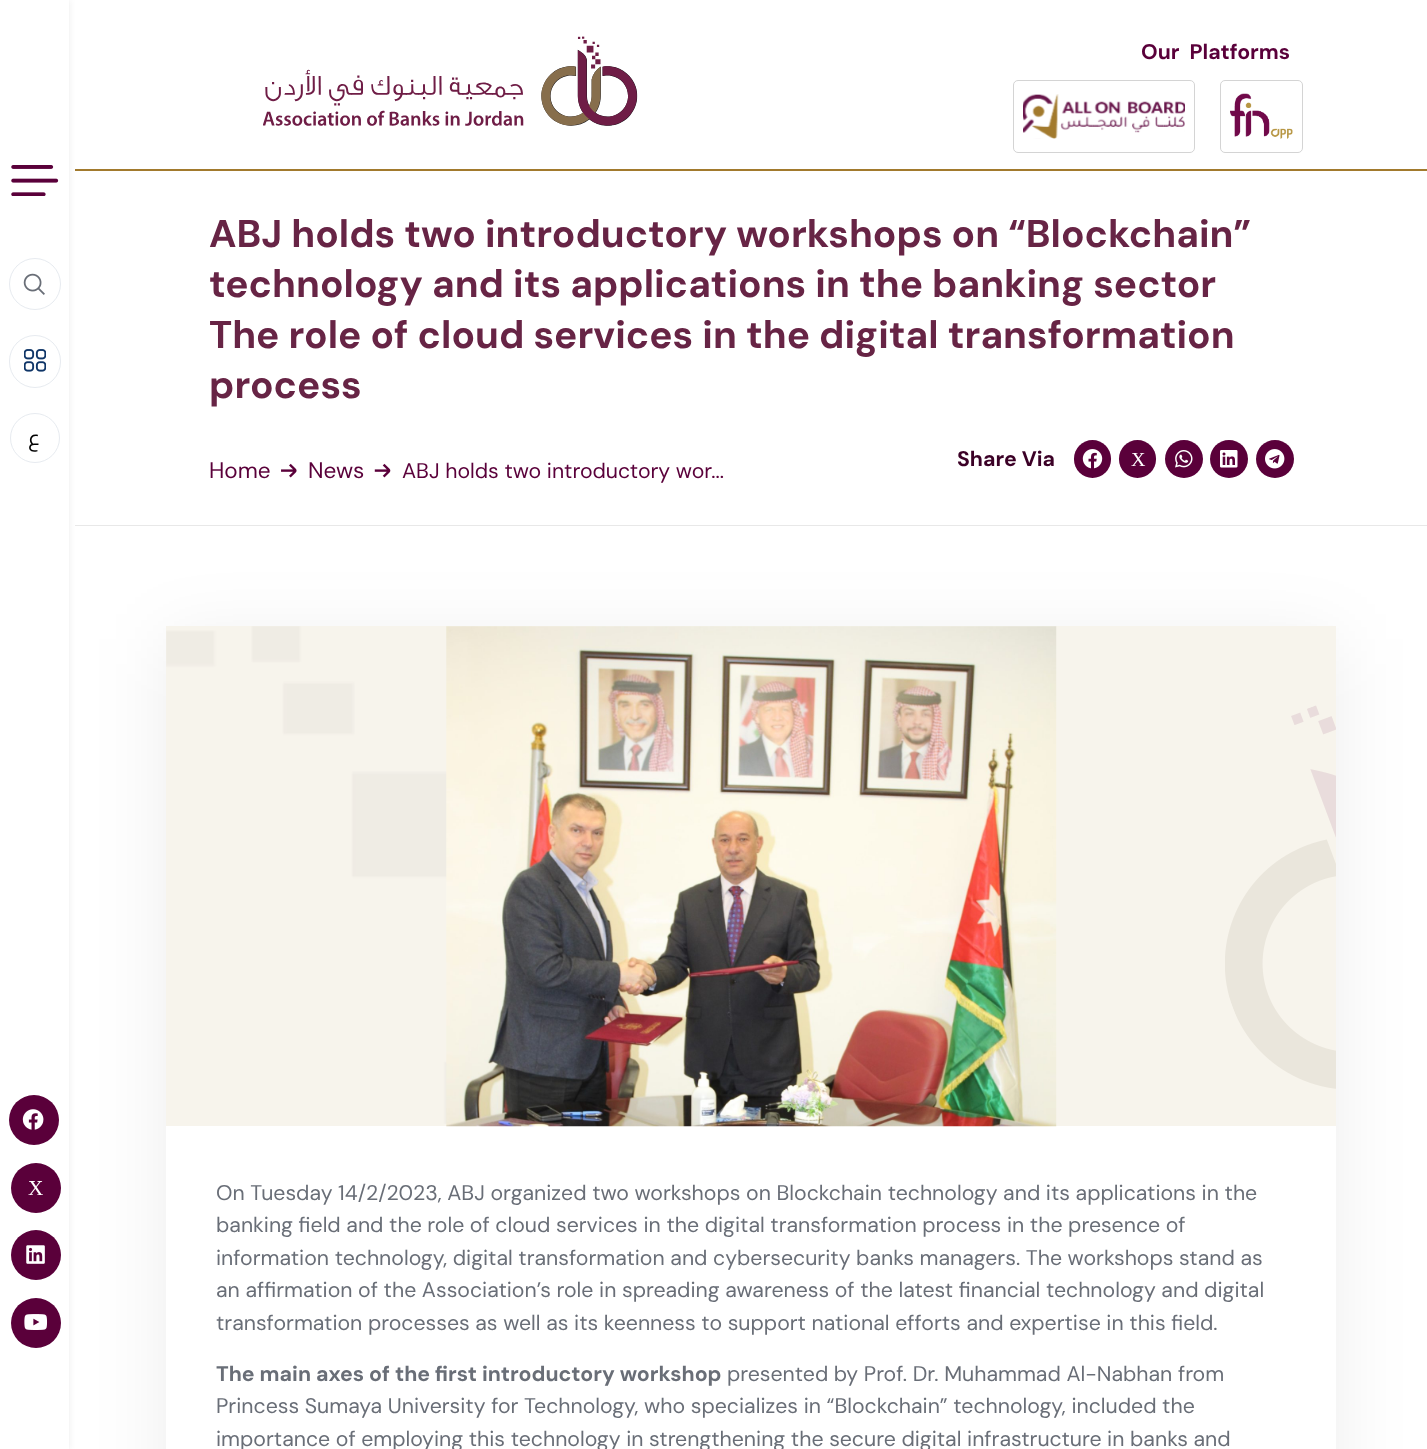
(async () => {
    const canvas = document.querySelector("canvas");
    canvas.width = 1427;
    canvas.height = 1449;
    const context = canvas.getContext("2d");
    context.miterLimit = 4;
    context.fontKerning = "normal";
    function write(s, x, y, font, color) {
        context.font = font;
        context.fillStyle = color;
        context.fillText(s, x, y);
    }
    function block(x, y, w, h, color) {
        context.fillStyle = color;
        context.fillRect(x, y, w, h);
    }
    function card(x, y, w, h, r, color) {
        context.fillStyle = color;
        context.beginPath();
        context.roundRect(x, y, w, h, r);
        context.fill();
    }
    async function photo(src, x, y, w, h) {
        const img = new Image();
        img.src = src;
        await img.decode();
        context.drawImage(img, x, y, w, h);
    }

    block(0, 0, 1427, 1449, "rgb(255, 255, 255)");
    block(75, 169, 1352, 2, "rgb(162, 122, 45)");
    await photo("media/1.png", 263, 36, 375, 90);
    write("Our  Platforms", 1141, 59, "bold 21.25px DM Sans", "rgb(90, 0, 58)");
    context.beginPath();
    context.roundRect(1013.5, 80.5, 181, 72, 4.5);
    context.strokeStyle = "rgb(212, 212, 212)";
    context.stroke();
    await photo("media/2.png", 1023, 94, 162, 45);
    context.beginPath();
    context.roundRect(1220.5, 80.5, 82, 72, 4.5);
    context.stroke();
    await photo("media/3.png", 1230, 93, 63, 46);
    block(75, 525, 1352, 1, "rgb(232, 232, 232)");
    context.fillStyle = "rgba(23, 25, 27, 0.09)";
    context.filter = "blur(3px)";
    context.beginPath();
    context.rect(0, 0, 69, 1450);
    context.fill();
    context.filter = "none";
    context.fillStyle = "rgba(0, 0, 0, 0.07)";
    context.filter = "blur(37.5px)";
    context.beginPath();
    context.rect(166, 639, 1170, 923);
    context.fill();
    context.filter = "none";
    block(0, 0, 69, 1449, "rgb(255, 255, 255)");
    await photo("media/4.png", 11, 165, 48, 31);
    context.beginPath();
    context.arc(35, 284, 25.5, 0, Math.PI * 2);
    context.strokeStyle = "rgb(231, 235, 240)";
    context.stroke();
    await photo("media/5.png", 23, 273, 22, 22);
    context.beginPath();
    context.roundRect(9.5, 335.5, 51, 52, 25.5);
    context.stroke();
    await photo("media/6.png", 24, 349, 22, 23);
    context.beginPath();
    context.arc(35, 438, 24.5, 0, Math.PI * 2);
    context.stroke();
    context.direction = "rtl";
    write("ع", 40, 445, "21.25px Cairo", "rgb(0, 0, 0)");
    context.fillStyle = "rgb(90, 0, 58)";
    context.beginPath();
    context.arc(34, 1120, 25, 0, Math.PI * 2);
    context.fill();
    await photo("media/7.png", 22, 1109, 22, 21);
    context.beginPath();
    context.arc(36, 1188, 25, 0, Math.PI * 2);
    context.fill();
    context.direction = "ltr";
    write("X", 28, 1195, "21.25px Liberation Serif", "rgb(255, 255, 255)");
    context.fillStyle = "rgb(90, 0, 58)";
    context.beginPath();
    context.arc(36, 1255, 25, 0, Math.PI * 2);
    context.fill();
    await photo("media/8.png", 26, 1245, 19, 19);
    context.beginPath();
    context.arc(36, 1323, 25, 0, Math.PI * 2);
    context.fill();
    await photo("media/9.png", 24, 1314, 24, 16);
    write("ABJ holds two introductory workshops on “Blockchain”", 209, 247, "bold 38.75px DM Sans", "rgb(103, 36, 69)");
    write("technology and its applications in the banking sector", 209, 297, "bold 38.75px DM Sans", "rgb(103, 36, 69)");
    write("The role of cloud services in the digital transformation", 209, 348, "bold 38.75px DM Sans", "rgb(103, 36, 69)");
    write("process", 209, 398, "bold 38.75px DM Sans", "rgb(103, 36, 69)");
    write("Share Via", 957, 466, "bold 21.25px DM Sans", "rgb(59, 0, 38)");
    card(1074, 440, 37, 38, 18.5, "rgb(90, 0, 58)");
    await photo("media/10.png", 1082, 449, 21, 20);
    card(1119, 440, 37, 38, 18.5, "rgb(90, 0, 58)");
    write("X", 1131, 466, "20px Liberation Serif", "rgb(255, 255, 255)");
    context.fillStyle = "rgb(90, 0, 58)";
    context.beginPath();
    context.arc(1184, 459, 19, 0, Math.PI * 2);
    context.fill();
    await photo("media/11.png", 1175, 450, 18, 18);
    context.beginPath();
    context.arc(1229, 459, 19, 0, Math.PI * 2);
    context.fill();
    await photo("media/12.png", 1220, 450, 18, 18);
    context.beginPath();
    context.arc(1275, 459, 19, 0, Math.PI * 2);
    context.fill();
    await photo("media/13.png", 1265, 449, 20, 20);
    write("Home", 209, 478, "22.5px DM Sans", "rgb(90, 0, 58)");
    await photo("media/14.png", 281, 463, 16, 15);
    write("News", 308, 478, "22.5px DM Sans", "rgb(90, 0, 58)");
    await photo("media/15.png", 374, 463, 17, 15);
    write("ABJ holds two introductory wor...", 402, 478, "21.25px DM Sans", "rgb(90, 0, 58)");
    block(166, 1126, 1170, 323, "rgb(255, 255, 255)");
    block(166, 626, 1170, 500, "rgb(247, 244, 236)");
    await photo("media/16.png", 166, 626, 281, 498);
    await photo("media/17.png", 446, 626, 611, 501);
    await photo("media/18.png", 1225, 705, 111, 384);
    write("On Tuesday 14/2/2023, ABJ organized two workshops on Blockchain technology and its applications in the", 216, 1200, "21.25px DM Sans", "rgb(105, 110, 119)");
    write("banking field and the role of cloud services in the digital transformation process in the presence of", 216, 1232, "21.25px DM Sans", "rgb(105, 110, 119)");
    write("information technology, digital transformation and cybersecurity banks managers. The workshops stand as", 216, 1265, "21.25px DM Sans", "rgb(105, 110, 119)");
    write("an affirmation of the Association’s role in spreading awareness of the latest financial technology and digital", 216, 1297, "21.25px DM Sans", "rgb(105, 110, 119)");
    write("transformation processes as well as its keenness to support national efforts and expertise in this field.", 216, 1330, "21.25px DM Sans", "rgb(105, 110, 119)");
    write("The main axes of the first introductory workshop", 216, 1381, "bold 21.25px DM Sans", "rgb(105, 110, 119)");
    write("presented by Prof. Dr. Muhammad Al-Nabhan from", 727, 1381, "21.25px DM Sans", "rgb(105, 110, 119)");
    write("Princess Sumaya University for Technology, who specializes in “Blockchain” technology, included the", 216, 1413, "21.25px DM Sans", "rgb(105, 110, 119)");
    write("importance of employing this technology in strengthening the secure digital infrastructure in banks and", 216, 1446, "21.25px DM Sans", "rgb(105, 110, 119)");
})();
